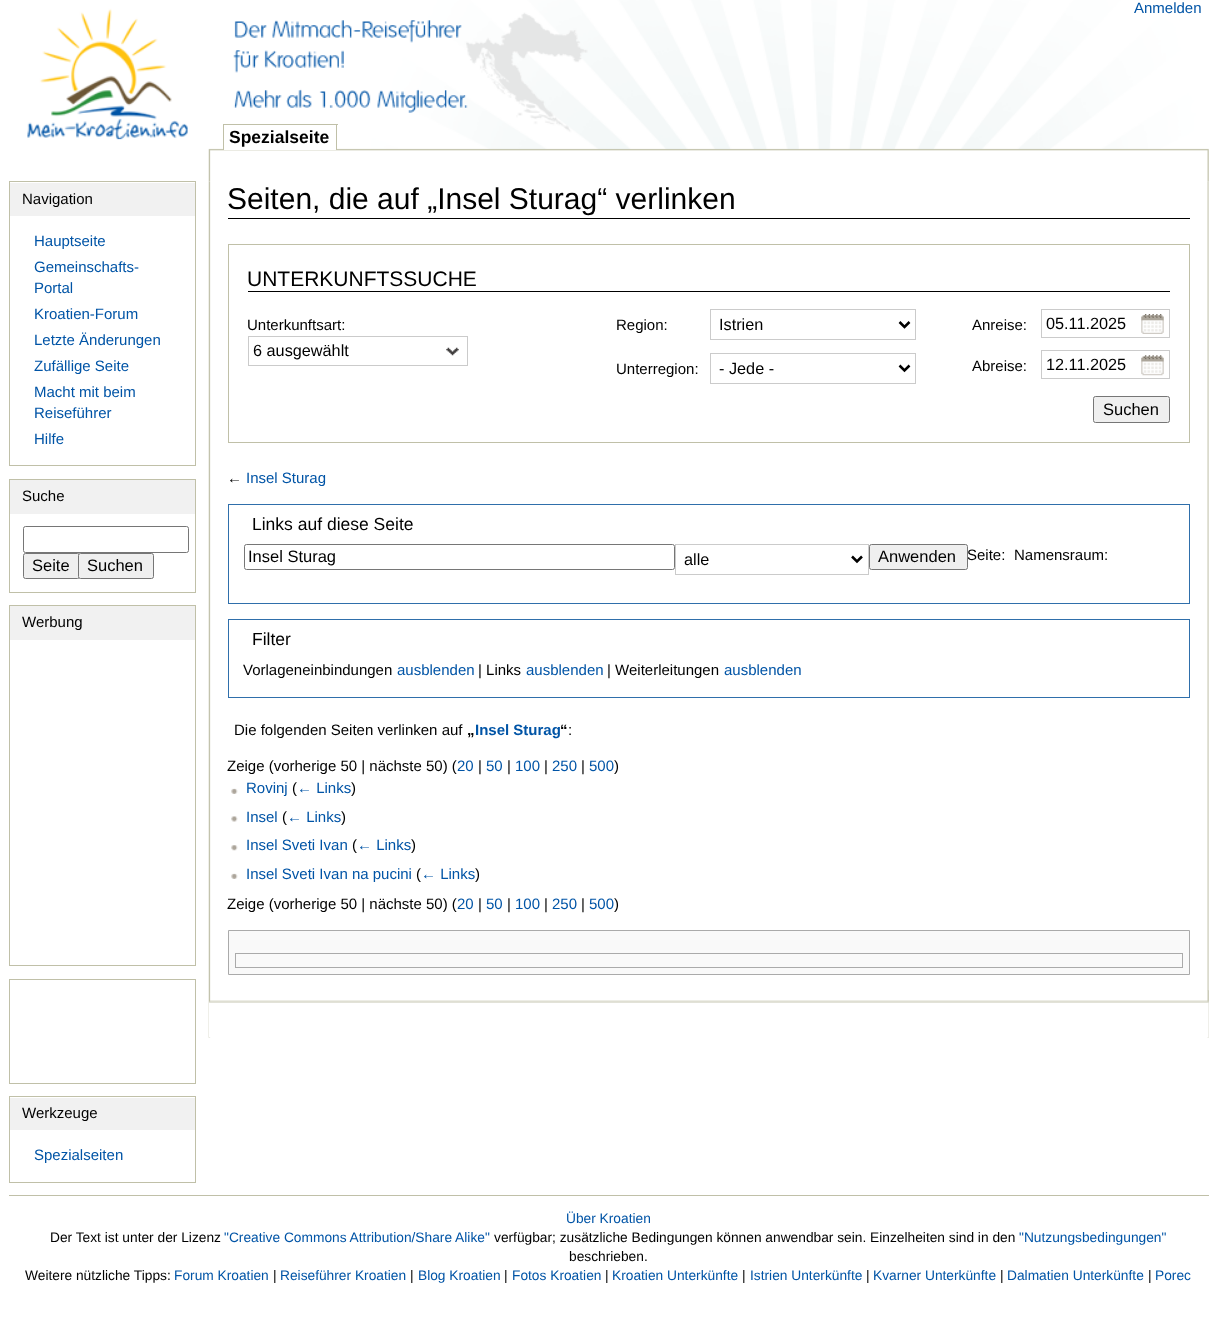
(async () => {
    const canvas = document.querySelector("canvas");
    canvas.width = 1216;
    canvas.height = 1332;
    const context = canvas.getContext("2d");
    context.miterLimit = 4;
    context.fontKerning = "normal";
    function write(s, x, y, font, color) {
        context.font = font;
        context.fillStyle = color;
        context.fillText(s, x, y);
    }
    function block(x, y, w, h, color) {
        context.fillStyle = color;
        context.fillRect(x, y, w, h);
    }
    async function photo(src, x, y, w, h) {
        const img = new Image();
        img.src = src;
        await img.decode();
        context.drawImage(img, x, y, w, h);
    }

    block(0, 0, 1216, 1332, "rgb(255, 255, 255)");
    await photo("media/1.png", 27, 0, 1182, 182);
    write("Anmelden", 1134, 13, "15px Liberation Sans", "rgb(0, 84, 166)");
    block(224, 148, 112, 2, "rgb(255, 255, 255)");
    block(223, 124, 115, 1, "rgb(192, 192, 168)");
    block(336, 124, 1, 26, "rgb(192, 192, 168)");
    block(223, 124, 1, 26, "rgb(192, 192, 168)");
    write("Spezialseite", 229, 143, "bold 17.5px Liberation Sans", "rgb(0, 0, 0)");
    context.strokeStyle = "rgb(192, 192, 168)";
    context.strokeRect(9.5, 181.5, 186, 284);
    block(10, 183, 185, 33, "rgb(241, 241, 241)");
    write("Navigation", 22, 204, "15px Liberation Sans", "rgb(0, 0, 0)");
    write("Hauptseite", 34, 246, "15px Liberation Sans", "rgb(0, 84, 166)");
    write("Gemeinschafts-", 34, 272, "15px Liberation Sans", "rgb(0, 84, 166)");
    write("Portal", 34, 293, "15px Liberation Sans", "rgb(0, 84, 166)");
    write("Kroatien-Forum", 34, 319, "15px Liberation Sans", "rgb(0, 84, 166)");
    write("Letzte Änderungen", 34, 345, "15px Liberation Sans", "rgb(0, 84, 166)");
    write("Zufällige Seite", 34, 371, "15px Liberation Sans", "rgb(0, 84, 166)");
    write("Macht mit beim", 34, 397, "15px Liberation Sans", "rgb(0, 84, 166)");
    write("Reiseführer", 34, 418, "15px Liberation Sans", "rgb(0, 84, 166)");
    write("Hilfe", 34, 444, "15px Liberation Sans", "rgb(0, 84, 166)");
    context.strokeRect(9.5, 479.5, 186, 113);
    block(10, 480, 185, 34, "rgb(241, 241, 241)");
    write("Suche", 22, 501, "15px Liberation Sans", "rgb(0, 0, 0)");
    context.beginPath();
    context.roundRect(23.5, 526.5, 165, 26, 2);
    context.strokeStyle = "rgb(118, 118, 118)";
    context.stroke();
    context.fillStyle = "rgb(239, 239, 239)";
    context.beginPath();
    context.roundRect(23.5, 553.5, 56, 25, 2);
    context.fill();
    context.stroke();
    write("Seite", 32, 571, "16.5px Liberation Sans", "rgb(0, 0, 0)");
    context.fillStyle = "rgb(239, 239, 239)";
    context.beginPath();
    context.roundRect(78.5, 553.5, 75, 25, 2);
    context.fill();
    context.stroke();
    write("Suchen", 87, 571, "16.5px Liberation Sans", "rgb(0, 0, 0)");
    context.strokeStyle = "rgb(192, 192, 168)";
    context.strokeRect(9.5, 605.5, 186, 360);
    block(10, 606, 185, 34, "rgb(241, 241, 241)");
    write("Werbung", 22, 627, "15px Liberation Sans", "rgb(0, 0, 0)");
    context.strokeRect(9.5, 979.5, 186, 104);
    context.strokeRect(9.5, 1096.5, 186, 86);
    block(10, 1098, 185, 32, "rgb(241, 241, 241)");
    write("Werkzeuge", 22, 1118, "15px Liberation Sans", "rgb(0, 0, 0)");
    write("Spezialseiten", 34, 1160, "15px Liberation Sans", "rgb(0, 84, 166)");
    await photo("media/2.png", 208, 181, 1001, 857);
    await photo("media/3.png", 209, 990, 1000, 48);
    block(228, 218, 962, 1, "rgb(0, 0, 0)");
    write("Seiten, die auf „Insel Sturag“ verlinken", 227, 209, "30px Liberation Sans", "rgb(0, 0, 0)");
    context.strokeRect(228.5, 244.5, 961, 198);
    block(248, 291, 922, 1, "rgb(0, 0, 0)");
    write("UNTERKUNFTSSUCHE", 247, 286, "21px Liberation Sans", "rgb(0, 0, 0)");
    write("Unterkunftsart:", 247, 330, "15px Liberation Sans", "rgb(0, 0, 0)");
    context.strokeStyle = "rgb(203, 203, 203)";
    context.strokeRect(248.5, 336.5, 219, 29);
    write("6 ausgewählt", 253, 356, "16.25px Liberation Sans", "rgb(0, 0, 0)");
    await photo("media/4.png", 446, 347, 13, 9);
    write("Region:", 616, 330, "15px Liberation Sans", "rgb(0, 0, 0)");
    context.strokeRect(710.5, 309.5, 205, 30);
    context.beginPath();
    context.moveTo(899.5, 322);
    context.lineTo(904.5, 327);
    context.lineTo(909.5, 322);
    context.strokeStyle = "rgb(0, 0, 0)";
    context.lineWidth = 2.5;
    context.stroke();
    write("Istrien", 719, 330, "16.25px Liberation Sans", "rgb(0, 0, 0)");
    write("Unterregion:", 616, 374, "15px Liberation Sans", "rgb(0, 0, 0)");
    context.strokeStyle = "rgb(203, 203, 203)";
    context.lineWidth = 1;
    context.strokeRect(710.5, 353.5, 205, 30);
    context.beginPath();
    context.moveTo(899.5, 365.5);
    context.lineTo(904.5, 370.5);
    context.lineTo(909.5, 365.5);
    context.strokeStyle = "rgb(0, 0, 0)";
    context.lineWidth = 2.5;
    context.stroke();
    write("- Jede -", 719, 374, "16.25px Liberation Sans", "rgb(0, 0, 0)");
    write("Anreise:", 972, 330, "15px Liberation Sans", "rgb(0, 0, 0)");
    await photo("media/5.png", 1141, 314, 23, 20);
    context.strokeStyle = "rgb(203, 203, 203)";
    context.lineWidth = 1;
    context.strokeRect(1041.5, 309.5, 128, 28);
    write("05.11.2025", 1046, 329, "16.25px Liberation Sans", "rgb(0, 0, 0)");
    write("Abreise:", 972, 371, "15px Liberation Sans", "rgb(0, 0, 0)");
    await photo("media/6.png", 1141, 355, 23, 21);
    context.strokeRect(1041.5, 350.5, 128, 28);
    write("12.11.2025", 1046, 370, "16.25px Liberation Sans", "rgb(0, 0, 0)");
    context.fillStyle = "rgb(239, 239, 239)";
    context.beginPath();
    context.roundRect(1093.5, 396.5, 76, 26, 2);
    context.fill();
    context.strokeStyle = "rgb(118, 118, 118)";
    context.stroke();
    write("Suchen", 1103, 415, "16.5px Liberation Sans", "rgb(0, 0, 0)");
    write("←", 227, 483, "15px Liberation Sans", "rgb(0, 0, 0)");
    write("Insel Sturag", 246, 483, "15px Liberation Sans", "rgb(0, 84, 166)");
    context.strokeStyle = "rgb(47, 111, 171)";
    context.strokeRect(228.5, 504.5, 961, 99);
    write("Links auf diese Seite", 252, 530, "17.5px Liberation Sans", "rgb(0, 0, 0)");
    context.beginPath();
    context.roundRect(244.5, 544.5, 430, 25, 2);
    context.strokeStyle = "rgb(118, 118, 118)";
    context.stroke();
    write("Insel Sturag", 248, 562, "16.5px Liberation Sans", "rgb(0, 0, 0)");
    context.strokeStyle = "rgb(203, 203, 203)";
    context.strokeRect(675.5, 544.5, 193, 30);
    context.beginPath();
    context.moveTo(852, 556.5);
    context.lineTo(857, 561.5);
    context.lineTo(862, 556.5);
    context.strokeStyle = "rgb(0, 0, 0)";
    context.lineWidth = 2.5;
    context.stroke();
    write("alle", 684, 565, "16.25px Liberation Sans", "rgb(0, 0, 0)");
    write("Seite:", 967, 560, "15px Liberation Sans", "rgb(0, 0, 0)");
    context.fillStyle = "rgb(239, 239, 239)";
    context.beginPath();
    context.roundRect(869.5, 544.5, 98, 25, 2);
    context.fill();
    context.strokeStyle = "rgb(118, 118, 118)";
    context.lineWidth = 1;
    context.stroke();
    write("Anwenden", 878, 562, "16.5px Liberation Sans", "rgb(0, 0, 0)");
    write("Namensraum:", 1014, 560, "15px Liberation Sans", "rgb(0, 0, 0)");
    context.strokeStyle = "rgb(47, 111, 171)";
    context.strokeRect(228.5, 619.5, 961, 78);
    write("Filter", 252, 645, "17.5px Liberation Sans", "rgb(0, 0, 0)");
    write("Vorlageneinbindungen", 243, 675, "15px Liberation Sans", "rgb(0, 0, 0)");
    write("ausblenden", 397, 675, "15px Liberation Sans", "rgb(0, 84, 166)");
    write("| Links", 478, 675, "15px Liberation Sans", "rgb(0, 0, 0)");
    write("ausblenden", 526, 675, "15px Liberation Sans", "rgb(0, 84, 166)");
    write("| Weiterleitungen", 607, 675, "15px Liberation Sans", "rgb(0, 0, 0)");
    write("ausblenden", 724, 675, "15px Liberation Sans", "rgb(0, 84, 166)");
    write("Die folgenden Seiten verlinken auf", 234, 735, "15px Liberation Sans", "rgb(0, 0, 0)");
    write("Insel Sturag", 475, 735, "bold 15px Liberation Sans", "rgb(0, 84, 166)");
    write("“", 560, 735, "bold 15px Liberation Sans", "rgb(0, 0, 0)");
    write(":", 568, 735, "15px Liberation Sans", "rgb(0, 0, 0)");
    write("„", 467, 735, "bold 15px Liberation Sans", "rgb(0, 0, 0)");
    write("Zeige (vorherige 50 | nächste 50) (", 227, 771, "15px Liberation Sans", "rgb(0, 0, 0)");
    write("20", 457, 771, "15px Liberation Sans", "rgb(0, 84, 166)");
    write("|", 478, 771, "15px Liberation Sans", "rgb(0, 0, 0)");
    write("50", 486, 771, "15px Liberation Sans", "rgb(0, 84, 166)");
    write("|", 507, 771, "15px Liberation Sans", "rgb(0, 0, 0)");
    write("100", 515, 771, "15px Liberation Sans", "rgb(0, 84, 166)");
    write("|", 544, 771, "15px Liberation Sans", "rgb(0, 0, 0)");
    write("250", 552, 771, "15px Liberation Sans", "rgb(0, 84, 166)");
    write("|", 581, 771, "15px Liberation Sans", "rgb(0, 0, 0)");
    write("500", 589, 771, "15px Liberation Sans", "rgb(0, 84, 166)");
    write(")", 614, 771, "15px Liberation Sans", "rgb(0, 0, 0)");
    await photo("media/7.png", 231, 788, 7, 6);
    write("Rovinj", 246, 793, "15px Liberation Sans", "rgb(0, 84, 166)");
    write("(", 292, 793, "15px Liberation Sans", "rgb(0, 0, 0)");
    write("← Links", 297, 793, "15px Liberation Sans", "rgb(0, 84, 166)");
    write(")", 351, 793, "15px Liberation Sans", "rgb(0, 0, 0)");
    await photo("media/8.png", 231, 816, 7, 6);
    write("Insel", 246, 822, "15px Liberation Sans", "rgb(0, 84, 166)");
    write("(", 282, 822, "15px Liberation Sans", "rgb(0, 0, 0)");
    write("← Links", 287, 822, "15px Liberation Sans", "rgb(0, 84, 166)");
    write(")", 341, 822, "15px Liberation Sans", "rgb(0, 0, 0)");
    await photo("media/9.png", 231, 845, 7, 6);
    write("Insel Sveti Ivan", 246, 850, "15px Liberation Sans", "rgb(0, 84, 166)");
    write("(", 352, 850, "15px Liberation Sans", "rgb(0, 0, 0)");
    write("← Links", 357, 850, "15px Liberation Sans", "rgb(0, 84, 166)");
    write(")", 411, 850, "15px Liberation Sans", "rgb(0, 0, 0)");
    await photo("media/7.png", 231, 873, 7, 6);
    write("Insel Sveti Ivan na pucini", 246, 879, "15px Liberation Sans", "rgb(0, 84, 166)");
    write("(", 416, 879, "15px Liberation Sans", "rgb(0, 0, 0)");
    write("← Links", 421, 879, "15px Liberation Sans", "rgb(0, 84, 166)");
    write(")", 475, 879, "15px Liberation Sans", "rgb(0, 0, 0)");
    write("Zeige (vorherige 50 | nächste 50) (", 227, 909, "15px Liberation Sans", "rgb(0, 0, 0)");
    write("20", 457, 909, "15px Liberation Sans", "rgb(0, 84, 166)");
    write("|", 478, 909, "15px Liberation Sans", "rgb(0, 0, 0)");
    write("50", 486, 909, "15px Liberation Sans", "rgb(0, 84, 166)");
    write("|", 507, 909, "15px Liberation Sans", "rgb(0, 0, 0)");
    write("100", 515, 909, "15px Liberation Sans", "rgb(0, 84, 166)");
    write("|", 544, 909, "15px Liberation Sans", "rgb(0, 0, 0)");
    write("250", 552, 909, "15px Liberation Sans", "rgb(0, 84, 166)");
    write("|", 581, 909, "15px Liberation Sans", "rgb(0, 0, 0)");
    write("500", 589, 909, "15px Liberation Sans", "rgb(0, 84, 166)");
    write(")", 614, 909, "15px Liberation Sans", "rgb(0, 0, 0)");
    context.fillStyle = "rgb(249, 249, 249)";
    context.beginPath();
    context.rect(228.5, 930.5, 961, 44);
    context.fill();
    context.strokeStyle = "rgb(170, 170, 170)";
    context.stroke();
    context.strokeRect(235.5, 953.5, 947, 14);
    block(9, 1195, 1200, 1, "rgb(192, 192, 168)");
    write("Über Kroatien", 566, 1223, "13.75px Liberation Sans", "rgb(0, 84, 166)");
    write("Der Text ist unter der Lizenz", 50, 1242, "13.75px Liberation Sans", "rgb(0, 0, 0)");
    write("\"Creative Commons Attribution/Share Alike\"", 224, 1242, "13.75px Liberation Sans", "rgb(0, 84, 166)");
    write("verfügbar; zusätzliche Bedingungen können anwendbar sein. Einzelheiten sind in den", 494, 1242, "13.75px Liberation Sans", "rgb(0, 0, 0)");
    write("\"Nutzungsbedingungen\"", 1019, 1242, "13.75px Liberation Sans", "rgb(0, 84, 166)");
    write("beschrieben.", 569, 1261, "13.75px Liberation Sans", "rgb(0, 0, 0)");
    write("Weitere nützliche Tipps:", 25, 1280, "13.75px Liberation Sans", "rgb(0, 0, 0)");
    write("Forum Kroatien", 174, 1280, "13.75px Liberation Sans", "rgb(0, 84, 166)");
    write("|", 273, 1280, "13.75px Liberation Sans", "rgb(0, 0, 0)");
    write("Reiseführer Kroatien", 280, 1280, "13.75px Liberation Sans", "rgb(0, 84, 166)");
    write("|", 410, 1280, "13.75px Liberation Sans", "rgb(0, 0, 0)");
    write("Blog Kroatien", 418, 1280, "13.75px Liberation Sans", "rgb(0, 84, 166)");
    write("|", 504, 1280, "13.75px Liberation Sans", "rgb(0, 0, 0)");
    write("Fotos Kroatien", 512, 1280, "13.75px Liberation Sans", "rgb(0, 84, 166)");
    write("|", 605, 1280, "13.75px Liberation Sans", "rgb(0, 0, 0)");
    write("Kroatien Unterkünfte", 612, 1280, "13.75px Liberation Sans", "rgb(0, 84, 166)");
    write("|", 742, 1280, "13.75px Liberation Sans", "rgb(0, 0, 0)");
    write("Istrien Unterkünfte", 750, 1280, "13.75px Liberation Sans", "rgb(0, 84, 166)");
    write("|", 866, 1280, "13.75px Liberation Sans", "rgb(0, 0, 0)");
    write("Kvarner Unterkünfte", 873, 1280, "13.75px Liberation Sans", "rgb(0, 84, 166)");
    write("|", 1000, 1280, "13.75px Liberation Sans", "rgb(0, 0, 0)");
    write("Dalmatien Unterkünfte", 1007, 1280, "13.75px Liberation Sans", "rgb(0, 84, 166)");
    write("|", 1148, 1280, "13.75px Liberation Sans", "rgb(0, 0, 0)");
    write("Porec", 1155, 1280, "13.75px Liberation Sans", "rgb(0, 84, 166)");
})();
